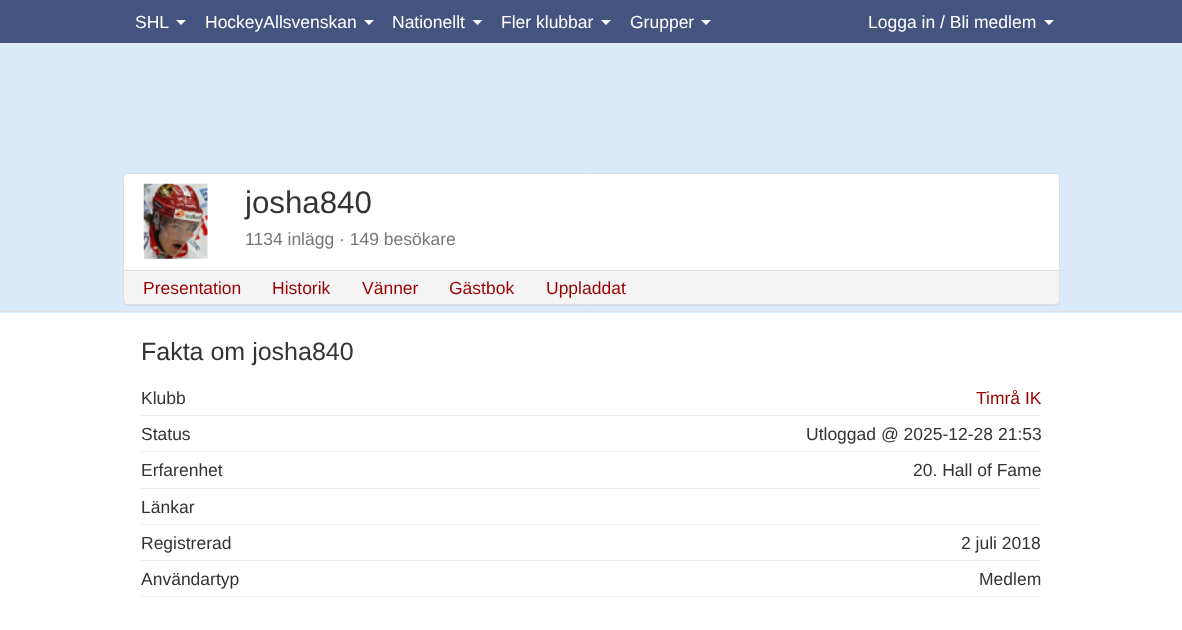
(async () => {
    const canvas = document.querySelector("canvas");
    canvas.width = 1182;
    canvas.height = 630;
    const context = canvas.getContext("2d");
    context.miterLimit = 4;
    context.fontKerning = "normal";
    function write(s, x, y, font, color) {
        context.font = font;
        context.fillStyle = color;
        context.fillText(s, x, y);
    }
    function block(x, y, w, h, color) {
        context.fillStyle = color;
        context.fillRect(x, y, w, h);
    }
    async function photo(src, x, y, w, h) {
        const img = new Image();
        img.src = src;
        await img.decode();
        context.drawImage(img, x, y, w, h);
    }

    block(0, 0, 1182, 630, "rgb(255, 255, 255)");
    block(0, 0, 1182, 43, "rgb(67, 85, 127)");
    block(0, 43, 1182, 1, "rgb(231, 231, 231)");
    write("SHL", 135, 28, "17.5px Liberation Sans", "rgb(255, 255, 255)");
    context.beginPath();
    context.moveTo(176, 20);
    context.lineTo(186, 20);
    context.lineTo(181, 25);
    context.closePath();
    context.fill();
    write("HockeyAllsvenskan", 205, 28, "17.5px Liberation Sans", "rgb(255, 255, 255)");
    context.beginPath();
    context.moveTo(364, 20);
    context.lineTo(374, 20);
    context.lineTo(369, 25);
    context.closePath();
    context.fill();
    write("Nationellt", 392, 28, "17.5px Liberation Sans", "rgb(255, 255, 255)");
    context.beginPath();
    context.moveTo(472.5, 20);
    context.lineTo(482.5, 20);
    context.lineTo(477.5, 25);
    context.closePath();
    context.fill();
    write("Fler klubbar", 501, 28, "17.5px Liberation Sans", "rgb(255, 255, 255)");
    context.beginPath();
    context.moveTo(601, 20);
    context.lineTo(611, 20);
    context.lineTo(606, 25);
    context.closePath();
    context.fill();
    write("Grupper", 630, 28, "17.5px Liberation Sans", "rgb(255, 255, 255)");
    context.beginPath();
    context.moveTo(701, 20);
    context.lineTo(711, 20);
    context.lineTo(706, 25);
    context.closePath();
    context.fill();
    write("Logga in / Bli medlem", 868, 28, "17.5px Liberation Sans", "rgb(255, 255, 255)");
    context.beginPath();
    context.moveTo(1044, 20);
    context.lineTo(1054, 20);
    context.lineTo(1049, 25);
    context.closePath();
    context.fill();
    block(0, 44, 1182, 269, "rgb(219, 234, 249)");
    block(0, 311, 1182, 1, "rgb(223, 223, 223)");
    context.fillStyle = "rgba(0, 0, 0, 0.05)";
    context.filter = "blur(0.5px)";
    context.beginPath();
    context.roundRect(123, 174, 937, 132, 5);
    context.fill();
    context.filter = "none";
    context.fillStyle = "rgb(255, 255, 255)";
    context.beginPath();
    context.roundRect(123.5, 173.5, 936, 131, 4.5);
    context.fill();
    context.strokeStyle = "rgb(221, 221, 221)";
    context.stroke();
    await photo("media/1.png", 143, 183, 65, 76);
    write("josha840", 245, 213, "31.25px Liberation Sans", "rgb(51, 51, 51)");
    write("1134 inlägg · 149 besökare", 245, 245, "17.5px Liberation Sans", "rgb(119, 119, 119)");
    context.fillStyle = "rgb(245, 245, 245)";
    context.beginPath();
    context.roundRect(124, 270, 935, 34, [0, 0, 4, 4]);
    context.fill();
    block(124, 270, 935, 1, "rgb(221, 221, 221)");
    write("Presentation", 143, 294, "17.5px Liberation Sans", "rgb(155, 0, 0)");
    write("Historik", 272, 294, "17.5px Liberation Sans", "rgb(155, 0, 0)");
    write("Vänner", 362, 294, "17.5px Liberation Sans", "rgb(155, 0, 0)");
    write("Gästbok", 449, 294, "17.5px Liberation Sans", "rgb(155, 0, 0)");
    write("Uppladdat", 546, 294, "17.5px Liberation Sans", "rgb(155, 0, 0)");
    write("Fakta om josha840", 141, 360, "25px Liberation Sans", "rgb(51, 51, 51)");
    write("Klubb", 141, 404, "17.5px Liberation Sans", "rgb(51, 51, 51)");
    write("Timrå IK", 976, 404, "17.5px Liberation Sans", "rgb(155, 0, 0)");
    block(141, 415, 900, 1, "rgb(238, 238, 238)");
    write("Status", 141, 440, "17.5px Liberation Sans", "rgb(51, 51, 51)");
    write("Utloggad @ 2025-12-28 21:53", 806, 440, "17.5px Liberation Sans", "rgb(51, 51, 51)");
    block(141, 451, 900, 1, "rgb(238, 238, 238)");
    write("Erfarenhet", 141, 476, "17.5px Liberation Sans", "rgb(51, 51, 51)");
    write("20. Hall of Fame", 913, 476, "17.5px Liberation Sans", "rgb(51, 51, 51)");
    block(141, 488, 900, 1, "rgb(238, 238, 238)");
    write("Länkar", 141, 513, "17.5px Liberation Sans", "rgb(51, 51, 51)");
    block(141, 524, 900, 1, "rgb(238, 238, 238)");
    write("Registrerad", 141, 549, "17.5px Liberation Sans", "rgb(51, 51, 51)");
    write("2 juli 2018", 961, 549, "17.5px Liberation Sans", "rgb(51, 51, 51)");
    block(141, 560, 900, 1, "rgb(238, 238, 238)");
    write("Användartyp", 141, 585, "17.5px Liberation Sans", "rgb(51, 51, 51)");
    write("Medlem", 979, 585, "17.5px Liberation Sans", "rgb(51, 51, 51)");
    block(141, 596, 900, 1, "rgb(238, 238, 238)");
})();
